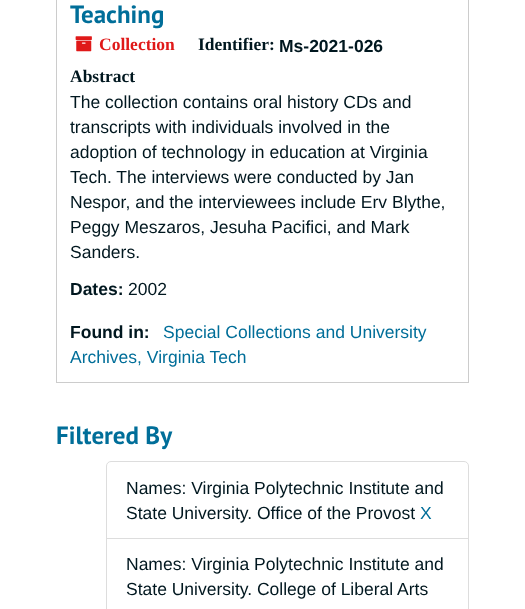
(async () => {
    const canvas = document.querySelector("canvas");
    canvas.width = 525;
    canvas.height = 609;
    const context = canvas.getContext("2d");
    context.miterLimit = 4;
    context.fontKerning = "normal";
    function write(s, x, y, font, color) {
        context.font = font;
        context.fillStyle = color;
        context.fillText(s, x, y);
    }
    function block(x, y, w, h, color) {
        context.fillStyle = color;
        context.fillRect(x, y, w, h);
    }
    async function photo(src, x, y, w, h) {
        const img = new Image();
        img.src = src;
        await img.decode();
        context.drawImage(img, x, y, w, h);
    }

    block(0, 0, 525, 609, "rgb(255, 255, 255)");
    context.strokeStyle = "rgb(204, 204, 204)";
    context.strokeRect(56.5, -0.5, 412, 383);
    write("Teaching", 70, 23, "bold 25px PT Sans", "rgb(0, 110, 153)");
    await photo("media/1.png", 75, 36, 17, 16);
    write("Collection", 99, 50, "bold 17.5px Liberation Serif", "rgb(224, 25, 25)");
    write("Identifier:", 198, 50, "bold 17.5px Liberation Serif", "rgb(0, 23, 31)");
    write("Ms-2021-026", 279, 52, "bold 17.5px Liberation Sans", "rgb(0, 23, 31)");
    write("Abstract", 70, 82, "bold 17.5px Liberation Serif", "rgb(0, 23, 31)");
    write("The collection contains oral history CDs and", 70, 108, "17.5px Liberation Sans", "rgb(0, 23, 31)");
    write("transcripts with individuals involved in the", 70, 133, "17.5px Liberation Sans", "rgb(0, 23, 31)");
    write("adoption of technology in education at Virginia", 70, 158, "17.5px Liberation Sans", "rgb(0, 23, 31)");
    write("Tech. The interviews were conducted by Jan", 70, 183, "17.5px Liberation Sans", "rgb(0, 23, 31)");
    write("Nespor, and the interviewees include Erv Blythe,", 70, 208, "17.5px Liberation Sans", "rgb(0, 23, 31)");
    write("Peggy Meszaros, Jesuha Pacifici, and Mark", 70, 233, "17.5px Liberation Sans", "rgb(0, 23, 31)");
    write("Sanders.", 70, 258, "17.5px Liberation Sans", "rgb(0, 23, 31)");
    write("Dates:", 70, 295, "bold 17.5px Liberation Sans", "rgb(0, 23, 31)");
    write("2002", 128, 295, "17.5px Liberation Sans", "rgb(0, 23, 31)");
    write("Found in:", 70, 338, "bold 17.5px Liberation Sans", "rgb(0, 23, 31)");
    write("Special Collections and University", 163, 338, "17.5px Liberation Sans", "rgb(0, 110, 153)");
    write("Archives, Virginia Tech", 70, 363, "17.5px Liberation Sans", "rgb(0, 110, 153)");
    write("Filtered By", 56, 444, "bold 25px PT Sans", "rgb(0, 110, 153)");
    context.beginPath();
    context.roundRect(106.5, 461.5, 362, 77, [4.5, 4.5, 0, 0]);
    context.strokeStyle = "rgb(221, 221, 221)";
    context.stroke();
    write("Names: Virginia Polytechnic Institute and", 126, 494, "17.5px Liberation Sans", "rgb(0, 23, 31)");
    write("State University. Office of the Provost", 126, 519, "17.5px Liberation Sans", "rgb(0, 23, 31)");
    write("X", 420, 519, "17.5px Liberation Sans", "rgb(0, 110, 153)");
    context.strokeRect(106.5, 538.5, 362, 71);
    write("Names: Virginia Polytechnic Institute and", 126, 570, "17.5px Liberation Sans", "rgb(0, 23, 31)");
    write("State University. College of Liberal Arts", 126, 595, "17.5px Liberation Sans", "rgb(0, 23, 31)");
})();
